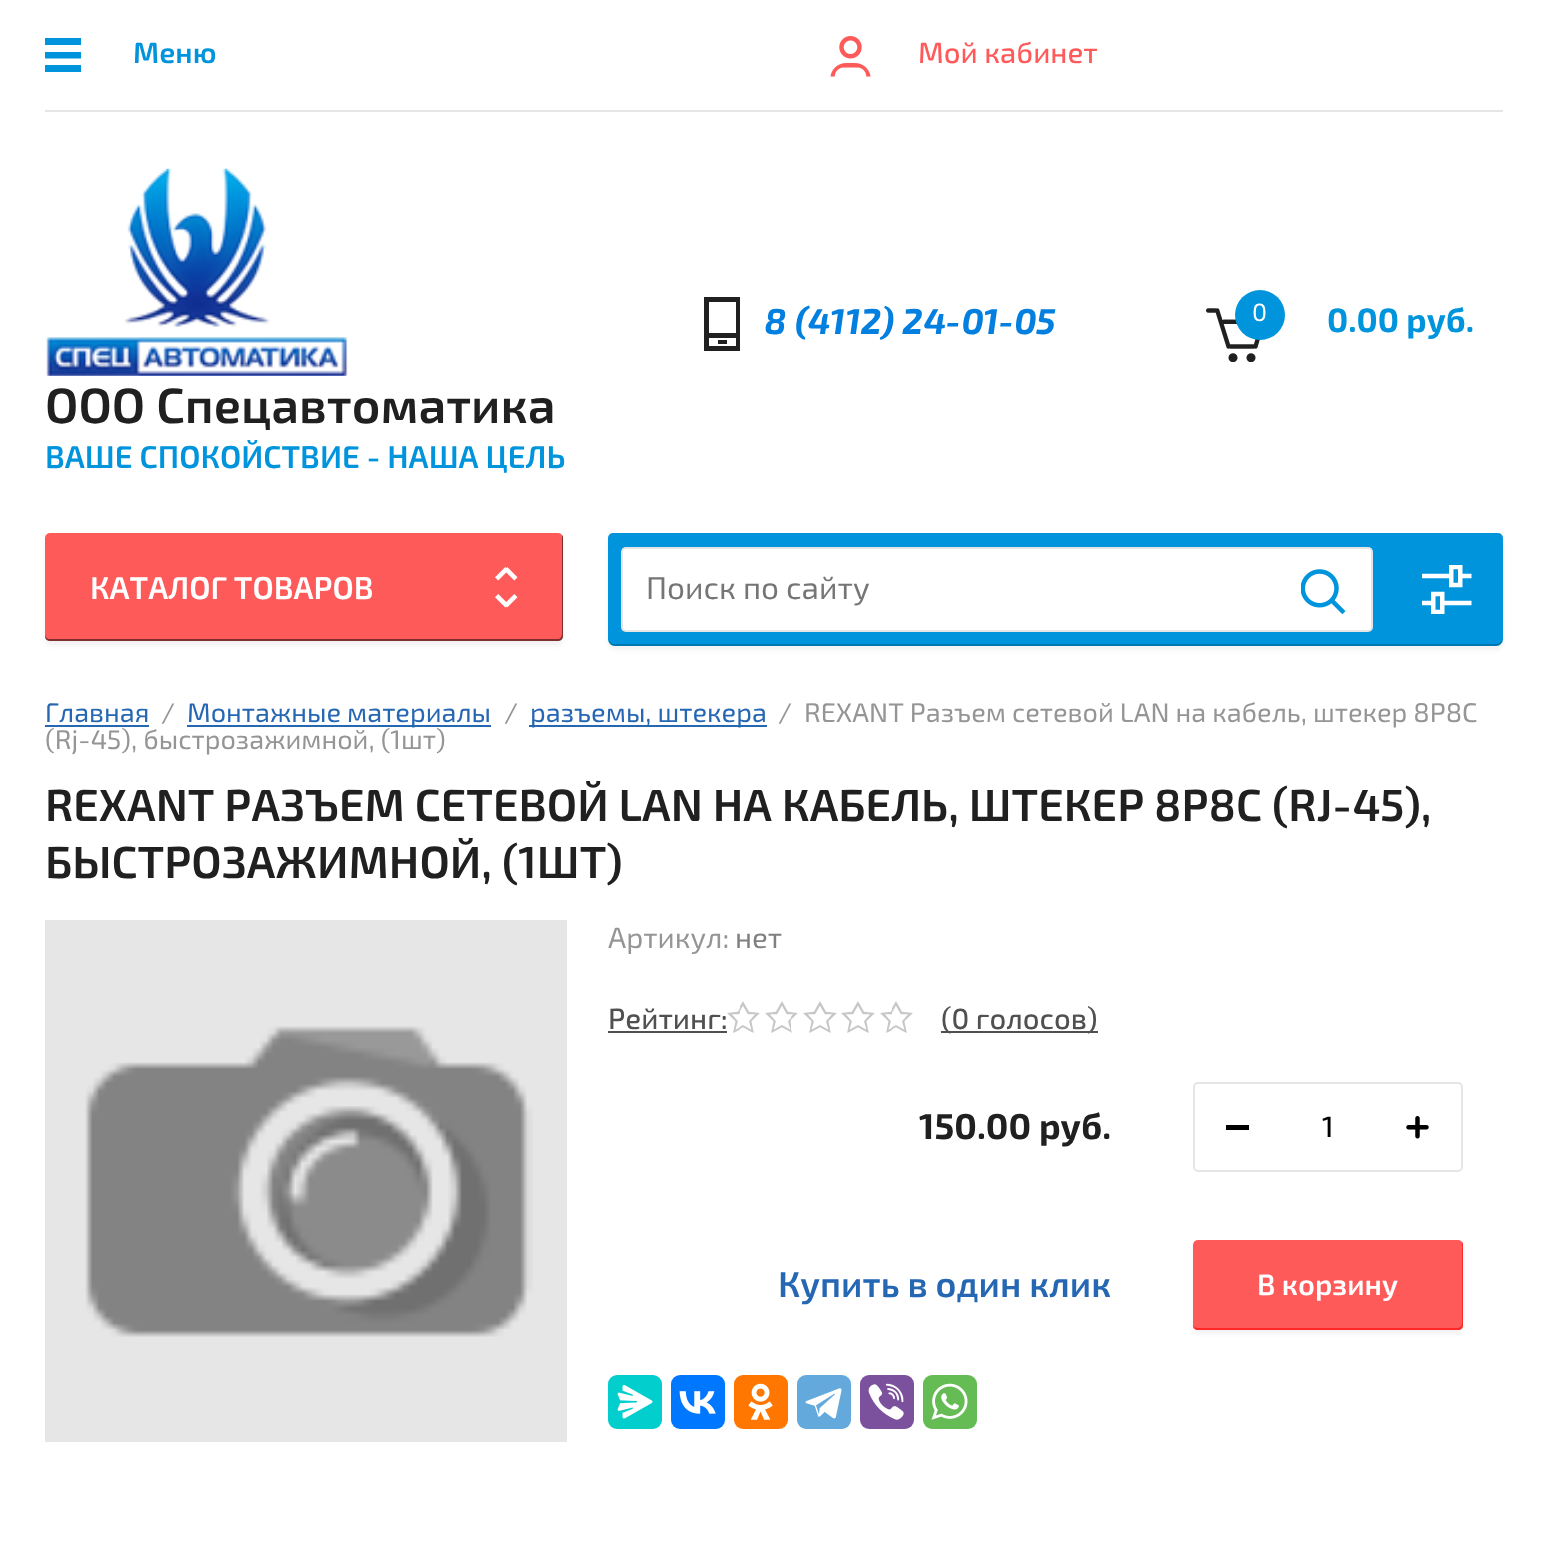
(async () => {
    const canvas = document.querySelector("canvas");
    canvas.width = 1548;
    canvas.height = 1555;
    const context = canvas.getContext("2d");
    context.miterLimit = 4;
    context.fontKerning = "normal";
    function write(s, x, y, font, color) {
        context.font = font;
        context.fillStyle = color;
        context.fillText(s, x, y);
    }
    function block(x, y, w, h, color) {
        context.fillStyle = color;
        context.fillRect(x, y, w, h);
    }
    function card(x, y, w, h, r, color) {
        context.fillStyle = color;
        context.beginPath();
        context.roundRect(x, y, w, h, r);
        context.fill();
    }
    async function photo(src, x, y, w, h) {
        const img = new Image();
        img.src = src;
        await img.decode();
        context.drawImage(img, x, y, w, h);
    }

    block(0, 0, 1548, 1555, "rgb(255, 255, 255)");
    block(45, 110, 1458, 2, "rgb(229, 229, 229)");
    context.fillStyle = "rgb(0, 148, 220)";
    context.beginPath();
    context.moveTo(45, 72);
    context.lineTo(45, 65);
    context.lineTo(81, 65);
    context.lineTo(81, 72);
    context.closePath();
    context.moveTo(45, 52);
    context.lineTo(81, 52);
    context.lineTo(81, 58.5);
    context.lineTo(45, 58.5);
    context.closePath();
    context.moveTo(45, 38);
    context.lineTo(81, 38);
    context.lineTo(81, 45);
    context.lineTo(45, 45);
    context.closePath();
    context.fill();
    write("Меню", 133, 63, "600 29.25px 'Exo 2'", "rgb(0, 148, 220)");
    await photo("media/1.png", 830, 36, 41, 41);
    write("Мой кабинет", 918, 63, "500 29.25px 'Exo 2'", "rgb(255, 90, 90)");
    context.fillStyle = "rgb(32, 32, 32)";
    context.beginPath();
    context.moveTo(704, 351);
    context.lineTo(704, 297);
    context.lineTo(740, 297);
    context.lineTo(740, 351);
    context.closePath();
    context.moveTo(736, 302);
    context.lineTo(709, 302);
    context.lineTo(709, 333);
    context.lineTo(736, 333);
    context.closePath();
    context.moveTo(736, 338);
    context.lineTo(709, 338);
    context.lineTo(709, 346);
    context.lineTo(736, 346);
    context.closePath();
    context.moveTo(727, 344);
    context.lineTo(718, 344);
    context.lineTo(718, 340);
    context.lineTo(727, 340);
    context.closePath();
    context.fill();
    write("8 (4112) 24-01-05", 764, 334, "italic bold 36px 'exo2'", "rgb(3, 127, 223)");
    await photo("media/2.png", 1206, 308, 54, 54);
    context.fillStyle = "rgb(0, 148, 220)";
    context.beginPath();
    context.arc(1260, 315, 25, 0, Math.PI * 2);
    context.fill();
    write("0", 1252, 321, "25px 'exo2'", "rgb(255, 255, 255)");
    write("0.00 руб.", 1327, 332, "bold 33.75px 'exo2'", "rgb(0, 148, 220)");
    await photo("media/3.png", 46, 168, 302, 208);
    write("ООО Спецавтоматика", 45, 423, "600 49.5px 'Exo 2'", "rgb(32, 32, 32)");
    write("ВАШЕ СПОКОЙСТВИЕ - НАША ЦЕЛЬ", 45, 468, "600 31.5px 'Exo 2'", "rgb(0, 148, 220)");
    context.fillStyle = "rgba(0, 0, 0, 0.05)";
    context.filter = "blur(2px)";
    context.beginPath();
    context.roundRect(45, 538, 518, 108, 5);
    context.fill();
    context.filter = "none";
    card(45, 533, 518, 108, 5, "rgb(255, 90, 90)");
    await photo("media/4.png", 495, 567, 23, 41);
    context.fillStyle = "rgba(0, 0, 0, 0.5)";
    context.beginPath();
    context.moveTo(45, 634);
    context.lineTo(45, 636);
    context.bezierCurveTo(45, 639, 47, 641, 50, 641);
    context.lineTo(558, 641);
    context.bezierCurveTo(561, 641, 563, 639, 563, 636);
    context.lineTo(563, 538);
    context.bezierCurveTo(563, 537, 563, 536, 562, 535);
    context.lineTo(562, 634);
    context.bezierCurveTo(562, 637, 560, 639, 558, 639);
    context.lineTo(50, 639);
    context.bezierCurveTo(47, 639, 45, 637, 45, 634);
    context.closePath();
    context.fill();
    write("КАТАЛОГ ТОВАРОВ", 90, 599, "600 31.5px 'Exo 2'", "rgb(255, 255, 255)");
    context.fillStyle = "rgba(0, 0, 0, 0.05)";
    context.filter = "blur(2px)";
    context.beginPath();
    context.roundRect(608, 538, 895, 112, 7);
    context.fill();
    context.filter = "none";
    context.fillStyle = "rgb(0, 148, 220)";
    context.beginPath();
    context.roundRect(608, 533, 895, 113, [5, 5, 7, 7]);
    context.fill();
    context.fillStyle = "rgba(0, 0, 0, 0.2)";
    context.beginPath();
    context.moveTo(608, 637);
    context.bezierCurveTo(608, 641, 610, 646, 615, 646);
    context.lineTo(1496, 646);
    context.bezierCurveTo(1501, 646, 1503, 641, 1503, 637);
    context.bezierCurveTo(1503, 640, 1500, 644, 1496, 644);
    context.lineTo(614, 644);
    context.bezierCurveTo(611, 644, 608, 640, 608, 637);
    context.closePath();
    context.fill();
    card(621, 547, 752, 85, 5, "rgb(255, 255, 255)");
    context.beginPath();
    context.roundRect(622, 548, 750, 83, 4);
    context.strokeStyle = "rgba(0, 0, 0, 0.1)";
    context.lineWidth = 2;
    context.stroke();
    write("Поиск по сайту", 646, 599, "31.5px 'exo2'", "rgb(117, 117, 117)");
    await photo("media/5.png", 1301, 569, 45, 45);
    await photo("media/6.png", 1422, 565, 50, 49);
    write("Главная", 45, 722, "27px 'exo2'", "rgb(37, 103, 179)");
    block(45, 725, 104, 2, "rgb(37, 103, 179)");
    write("/", 161, 722, "27px 'exo2'", "rgb(149, 149, 149)");
    block(187, 725, 304, 2, "rgb(37, 103, 179)");
    write("Монтажные материалы", 187, 722, "27px 'exo2'", "rgb(37, 103, 179)");
    write("/", 504, 722, "27px 'exo2'", "rgb(149, 149, 149)");
    block(529, 725, 238, 2, "rgb(37, 103, 179)");
    write("разъемы, штекера", 530, 722, "27px 'exo2'", "rgb(37, 103, 179)");
    write("/  REXANT Разъем сетевой LAN на кабель, штекер 8P8C", 778, 722, "27px 'exo2'", "rgb(149, 149, 149)");
    write("(Rj-45), быстрозажимной, (1шт)", 45, 749, "27px 'exo2'", "rgb(149, 149, 149)");
    write("REXANT РАЗЪЕМ СЕТЕВОЙ LAN НА КАБЕЛЬ, ШТЕКЕР 8P8C (RJ-45),", 45, 821, "600 45px 'Exo 2'", "rgb(32, 32, 32)");
    write("БЫСТРОЗАЖИМНОЙ, (1ШТ)", 45, 878, "600 45px 'Exo 2'", "rgb(32, 32, 32)");
    block(45, 920, 522, 522, "rgb(230, 230, 230)");
    await photo("media/7.png", 85, 1026, 448, 311);
    write("Артикул:", 608, 948, "29.25px 'exo2'", "rgb(149, 149, 149)");
    write("нет", 735, 948, "29.25px 'exo2'", "rgb(128, 128, 128)");
    write("Рейтинг:", 608, 1029, "500 29.25px 'Exo 2'", "rgb(80, 80, 80)");
    block(608, 1031, 119, 2, "rgb(80, 80, 80)");
    await photo("media/8.png", 727, 1001, 186, 32);
    block(941, 1031, 157, 2, "rgb(80, 80, 80)");
    write("(0 голосов)", 941, 1029, "500 29.25px 'Exo 2'", "rgb(80, 80, 80)");
    write("150.00 руб.", 919, 1139, "bold 36px 'exo2'", "rgb(32, 32, 32)");
    context.beginPath();
    context.roundRect(1194, 1083, 268, 88, 4);
    context.strokeStyle = "rgb(229, 229, 229)";
    context.stroke();
    block(1226, 1125, 23, 5, "rgb(0, 0, 0)");
    write("1", 1322, 1137, "500 29.25px 'Exo 2'", "rgb(0, 0, 0)");
    await photo("media/9.png", 1406, 1116, 23, 23);
    write("Купить в один клик", 778, 1297, "600 36px 'Exo 2'", "rgb(37, 103, 179)");
    context.fillStyle = "rgba(0, 0, 0, 0.05)";
    context.filter = "blur(2px)";
    context.beginPath();
    context.roundRect(1193, 1244, 270, 90, 5);
    context.fill();
    context.filter = "none";
    card(1193, 1240, 270, 90, 5, "rgb(255, 90, 90)");
    context.fillStyle = "rgb(255, 39, 39)";
    context.beginPath();
    context.moveTo(1193, 1325);
    context.bezierCurveTo(1193, 1328, 1195, 1330, 1198, 1330);
    context.lineTo(1458, 1330);
    context.bezierCurveTo(1461, 1330, 1463, 1328, 1463, 1325);
    context.lineTo(1463, 1245);
    context.bezierCurveTo(1463, 1244, 1463, 1243, 1462, 1242);
    context.lineTo(1462, 1323);
    context.bezierCurveTo(1462, 1325, 1460, 1328, 1458, 1328);
    context.lineTo(1197, 1328);
    context.bezierCurveTo(1196, 1328, 1194, 1327, 1193, 1325);
    context.closePath();
    context.fill();
    write("В корзину", 1257, 1295, "600 29.25px 'Exo 2'", "rgb(255, 255, 255)");
    card(608, 1375, 54, 54, 9, "rgb(3, 206, 206)");
    await photo("media/10.png", 617, 1385, 36, 34);
    card(671, 1375, 54, 54, 9, "rgb(0, 119, 255)");
    await photo("media/11.png", 679, 1391, 37, 23);
    card(734, 1375, 54, 54, 9, "rgb(255, 119, 0)");
    await photo("media/12.png", 748, 1383, 25, 37);
    card(797, 1375, 54, 54, 9, "rgb(100, 169, 220)");
    await photo("media/13.png", 805, 1388, 37, 31);
    card(860, 1375, 54, 54, 9, "rgb(123, 81, 157)");
    await photo("media/14.png", 868, 1383, 36, 37);
    card(923, 1375, 54, 54, 9, "rgb(101, 188, 84)");
    await photo("media/15.png", 931, 1383, 37, 37);
})();
